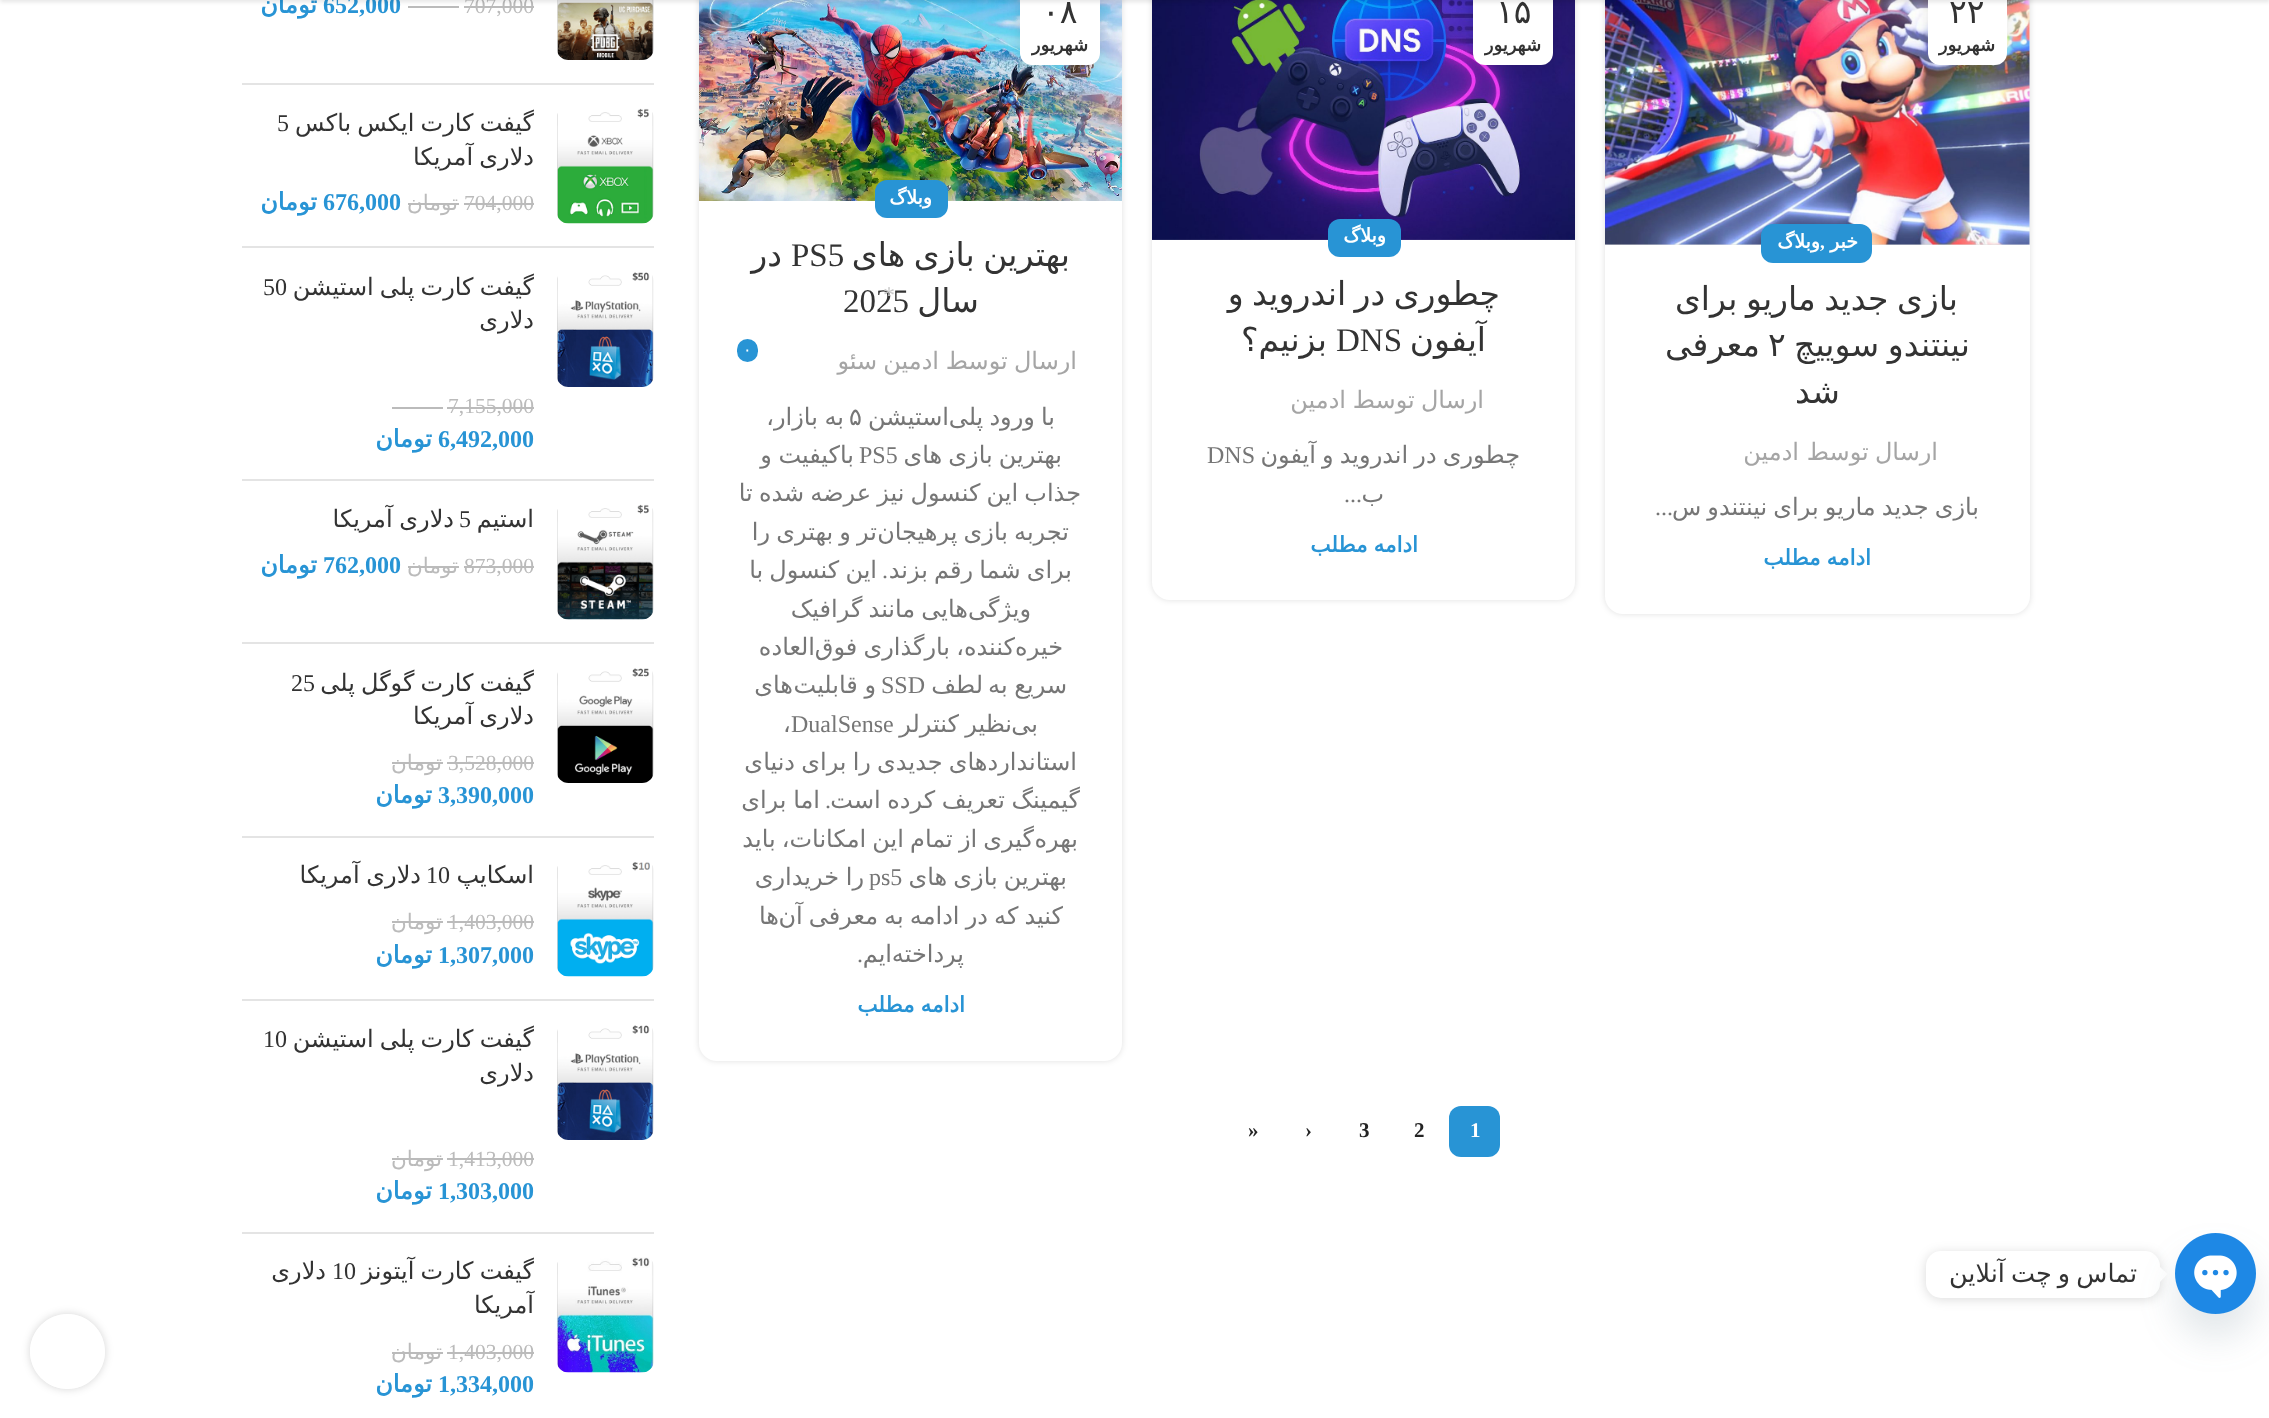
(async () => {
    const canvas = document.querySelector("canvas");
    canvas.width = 2269;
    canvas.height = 1418;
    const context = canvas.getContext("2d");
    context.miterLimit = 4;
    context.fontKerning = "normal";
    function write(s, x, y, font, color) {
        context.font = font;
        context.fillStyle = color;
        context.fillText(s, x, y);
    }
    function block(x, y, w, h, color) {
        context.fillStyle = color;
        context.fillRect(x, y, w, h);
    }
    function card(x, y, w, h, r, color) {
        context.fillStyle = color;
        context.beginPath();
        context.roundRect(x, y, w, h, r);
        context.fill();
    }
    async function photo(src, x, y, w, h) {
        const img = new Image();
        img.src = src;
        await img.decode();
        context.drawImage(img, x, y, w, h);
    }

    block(0, 0, 2269, 1418, "rgb(255, 255, 255)");
    context.fillStyle = "rgba(0, 0, 0, 0.15)";
    context.filter = "blur(6px)";
    context.beginPath();
    context.roundRect(1926, 1253, 234, 46, 15);
    context.fill();
    context.filter = "none";
    card(1926, 1251, 234, 47, 15, "rgb(255, 255, 255)");
    context.beginPath();
    context.moveTo(2160, 1282);
    context.lineTo(2160, 1267);
    context.lineTo(2167.5, 1274);
    context.closePath();
    context.fill();
    context.fillStyle = "rgba(73, 104, 126, 0.16)";
    context.filter = "blur(18px)";
    context.beginPath();
    context.roundRect(2175, 1257, 81, 81, 40.5);
    context.fill();
    context.filter = "none";
    await photo("media/1.png", 2175, 1233, 81, 81);
    context.wordSpacing = "-2px";
    context.direction = "rtl";
    write("تماس و چت آنلاین", 2137, 1282, "25.5px DejaVu Sans", "rgb(51, 51, 51)");
    context.fillStyle = "rgba(0, 0, 0, 0.12)";
    context.filter = "blur(3px)";
    context.beginPath();
    context.roundRect(1605, -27, 425, 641, 18);
    context.fill();
    context.filter = "none";
    await photo("media/2.png", 1605, 0, 425, 245);
    context.fillStyle = "rgba(0, 0, 0, 0.1)";
    context.filter = "blur(7px)";
    context.beginPath();
    context.roundRect(1928, -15, 79, 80, 12);
    context.fill();
    context.filter = "none";
    card(1928, -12, 79, 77, 12, "rgb(255, 255, 255)");
    context.wordSpacing = "0px";
    context.direction = "ltr";
    write("۲۲", 1949, 23, "33px DejaVu Sans", "rgb(51, 51, 51)");
    context.direction = "rtl";
    write("شهریور", 1995, 51, "bold 18px DejaVu Sans", "rgb(51, 51, 51)");
    context.fillStyle = "rgb(255, 255, 255)";
    context.beginPath();
    context.roundRect(1605, 245, 425, 369, [0, 0, 18, 18]);
    context.fill();
    card(1761, 224, 111, 39, 12, "rgb(40, 148, 213)");
    write("خبر", 1858, 248, "bold 19px DejaVu Sans", "rgb(255, 255, 255)");
    context.direction = "ltr";
    write(",", 1820, 248, "bold 19px Liberation Serif", "rgb(255, 255, 255)");
    context.direction = "rtl";
    write("وبلاگ", 1820, 248, "bold 19px DejaVu Sans", "rgb(255, 255, 255)");
    context.wordSpacing = "-2px";
    write("بازی جدید ماریو برای", 1958, 310, "33px DejaVu Sans", "rgb(51, 51, 51)");
    write("نینتندو سوییچ", 1970, 356, "33px DejaVu Sans", "rgb(51, 51, 51)");
    context.wordSpacing = "0px";
    context.direction = "ltr";
    write("۲", 1768, 356, "33px DejaVu Sans", "rgb(51, 51, 51)");
    context.direction = "rtl";
    write("معرفی", 1760, 356, "33px DejaVu Sans", "rgb(51, 51, 51)");
    write("شد", 1840, 403, "33px DejaVu Sans", "rgb(51, 51, 51)");
    context.wordSpacing = "-1.5px";
    write("ارسال توسط", 1938, 460, "24px DejaVu Sans", "rgb(165, 165, 165)");
    context.wordSpacing = "0px";
    write("ادمین", 1799, 460, "24px DejaVu Sans", "rgb(165, 165, 165)");
    context.wordSpacing = "-1.5px";
    write("بازی جدید ماریو برای نینتندو س", 1979, 515, "24px DejaVu Sans", "rgb(118, 118, 118)");
    context.wordSpacing = "0px";
    write("...", 1673, 515, "24px Liberation Serif", "rgb(118, 118, 118)");
    context.wordSpacing = "-1px";
    write("ادامه مطلب", 1871, 565, "bold 21.5px DejaVu Sans", "rgb(40, 148, 213)");
    context.fillStyle = "rgba(0, 0, 0, 0.12)";
    context.filter = "blur(3px)";
    context.beginPath();
    context.roundRect(1152, -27, 423, 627, 18);
    context.fill();
    context.filter = "none";
    await photo("media/3.png", 1152, 0, 423, 240);
    context.fillStyle = "rgba(0, 0, 0, 0.1)";
    context.filter = "blur(7px)";
    context.beginPath();
    context.roundRect(1473, -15, 80, 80, 12);
    context.fill();
    context.filter = "none";
    card(1473, -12, 80, 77, 12, "rgb(255, 255, 255)");
    context.wordSpacing = "0px";
    context.direction = "ltr";
    write("۱۵", 1496, 23, "33px DejaVu Sans", "rgb(51, 51, 51)");
    context.direction = "rtl";
    write("شهریور", 1541, 51, "bold 18px DejaVu Sans", "rgb(51, 51, 51)");
    context.fillStyle = "rgb(255, 255, 255)";
    context.beginPath();
    context.roundRect(1152, 240, 423, 360, [0, 0, 18, 18]);
    context.fill();
    card(1328, 219, 73, 38, 12, "rgb(40, 148, 213)");
    write("وبلاگ", 1386, 242, "bold 19px DejaVu Sans", "rgb(255, 255, 255)");
    context.wordSpacing = "-2px";
    write("چطوری در اندروید و", 1500, 305, "33px DejaVu Sans", "rgb(51, 51, 51)");
    context.wordSpacing = "0px";
    write("آیفون", 1486, 351, "33px DejaVu Sans", "rgb(51, 51, 51)");
    context.direction = "ltr";
    write("DNS", 1336, 351, "33px Liberation Serif", "rgb(51, 51, 51)");
    context.direction = "rtl";
    write("بزنیم؟", 1327, 351, "33px DejaVu Sans", "rgb(51, 51, 51)");
    context.wordSpacing = "-1.5px";
    write("ارسال توسط", 1484, 408, "24px DejaVu Sans", "rgb(165, 165, 165)");
    context.wordSpacing = "0px";
    write("ادمین", 1346, 408, "24px DejaVu Sans", "rgb(165, 165, 165)");
    context.wordSpacing = "-1.5px";
    write("چطوری در اندروید و آیفون", 1520, 463, "24px DejaVu Sans", "rgb(118, 118, 118)");
    context.wordSpacing = "0px";
    context.direction = "ltr";
    write("DNS", 1207, 463, "24px Liberation Serif", "rgb(118, 118, 118)");
    context.direction = "rtl";
    write("ب", 1384, 502, "24px DejaVu Sans", "rgb(118, 118, 118)");
    write("...", 1362, 502, "24px Liberation Serif", "rgb(118, 118, 118)");
    context.wordSpacing = "-1px";
    write("ادامه مطلب", 1418, 552, "bold 21.5px DejaVu Sans", "rgb(40, 148, 213)");
    context.fillStyle = "rgba(0, 0, 0, 0.12)";
    context.filter = "blur(3px)";
    context.beginPath();
    context.roundRect(699, -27, 423, 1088, 18);
    context.fill();
    context.filter = "none";
    await photo("media/4.png", 699, 0, 423, 201);
    context.fillStyle = "rgba(0, 0, 0, 0.1)";
    context.filter = "blur(7px)";
    context.beginPath();
    context.roundRect(1020, -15, 80, 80, 12);
    context.fill();
    context.filter = "none";
    card(1020, -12, 80, 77, 12, "rgb(255, 255, 255)");
    context.wordSpacing = "0px";
    context.direction = "ltr";
    write("۰۸", 1042, 23, "33px DejaVu Sans", "rgb(51, 51, 51)");
    context.direction = "rtl";
    write("شهریور", 1088, 51, "bold 18px DejaVu Sans", "rgb(51, 51, 51)");
    context.fillStyle = "rgb(255, 255, 255)";
    context.beginPath();
    context.roundRect(699, 201, 423, 860, [0, 0, 18, 18]);
    context.fill();
    card(875, 180, 73, 38, 12, "rgb(40, 148, 213)");
    write("وبلاگ", 932, 204, "bold 19px DejaVu Sans", "rgb(255, 255, 255)");
    context.wordSpacing = "-2px";
    write("بهترین بازی های", 1070, 266, "33px DejaVu Sans", "rgb(51, 51, 51)");
    context.wordSpacing = "0px";
    context.direction = "ltr";
    write("PS5", 791, 266, "33px Liberation Serif", "rgb(51, 51, 51)");
    context.direction = "rtl";
    write("در", 782, 266, "33px DejaVu Sans", "rgb(51, 51, 51)");
    write("سال", 979, 312, "33px DejaVu Sans", "rgb(51, 51, 51)");
    context.direction = "ltr";
    write("2025", 843, 312, "33px Liberation Serif", "rgb(51, 51, 51)");
    context.wordSpacing = "-1.5px";
    context.direction = "rtl";
    write("ارسال توسط", 1077, 369, "24px DejaVu Sans", "rgb(165, 165, 165)");
    write("ادمین سئو", 939, 369, "24px DejaVu Sans", "rgb(165, 165, 165)");
    card(737, 339, 21, 23, 10.5, "rgb(40, 148, 213)");
    context.wordSpacing = "0px";
    context.direction = "ltr";
    write("۰", 743, 355, "16px DejaVu Sans", "rgb(255, 255, 255)");
    context.wordSpacing = "-1.5px";
    context.direction = "rtl";
    write("با ورود پلی", 1055, 425, "24px DejaVu Sans", "rgb(118, 118, 118)");
    context.wordSpacing = "0px";
    write("استیشن", 949, 425, "24px DejaVu Sans", "rgb(118, 118, 118)");
    context.direction = "ltr";
    write("۵", 849, 425, "24px DejaVu Sans", "rgb(118, 118, 118)");
    context.wordSpacing = "-1px";
    context.direction = "rtl";
    write("به بازار،", 844, 425, "24px DejaVu Sans", "rgb(118, 118, 118)");
    context.wordSpacing = "-1.5px";
    write("بهترین بازی های", 1062, 463, "24px DejaVu Sans", "rgb(118, 118, 118)");
    context.wordSpacing = "0px";
    context.direction = "ltr";
    write("PS5", 859, 463, "24px Liberation Serif", "rgb(118, 118, 118)");
    context.wordSpacing = "-1px";
    context.direction = "rtl";
    write("باکیفیت و", 854, 463, "24px DejaVu Sans", "rgb(118, 118, 118)");
    context.wordSpacing = "-1.5px";
    write("جذاب این کنسول نیز عرضه شده تا", 1081, 501, "24px DejaVu Sans", "rgb(118, 118, 118)");
    write("تجربه بازی پرهیجان", 1069, 540, "24px DejaVu Sans", "rgb(118, 118, 118)");
    write("تر و بهتری را", 877, 540, "24px DejaVu Sans", "rgb(118, 118, 118)");
    write("برای شما رقم بزند", 1072, 578, "24px DejaVu Sans", "rgb(118, 118, 118)");
    context.wordSpacing = "0px";
    write(".", 888, 578, "24px Liberation Serif", "rgb(118, 118, 118)");
    context.wordSpacing = "-1.5px";
    write("این کنسول با", 877, 578, "24px DejaVu Sans", "rgb(118, 118, 118)");
    context.wordSpacing = "0px";
    write("ویژگی", 1031, 617, "24px DejaVu Sans", "rgb(118, 118, 118)");
    context.wordSpacing = "-1.5px";
    write("هایی مانند گرافیک", 968, 617, "24px DejaVu Sans", "rgb(118, 118, 118)");
    context.wordSpacing = "0px";
    write("خیره", 1063, 655, "24px DejaVu Sans", "rgb(118, 118, 118)");
    context.wordSpacing = "-1.5px";
    write("کننده، بارگذاری فوق", 1015, 655, "24px DejaVu Sans", "rgb(118, 118, 118)");
    context.wordSpacing = "0px";
    write("العاده", 815, 655, "24px DejaVu Sans", "rgb(118, 118, 118)");
    context.wordSpacing = "-1px";
    write("سریع به", 1067, 693, "24px DejaVu Sans", "rgb(118, 118, 118)");
    context.wordSpacing = "0px";
    write("لطف", 983, 693, "24px DejaVu Sans", "rgb(118, 118, 118)");
    context.direction = "ltr";
    write("SSD", 881, 693, "24px Liberation Serif", "rgb(118, 118, 118)");
    context.wordSpacing = "-1px";
    context.direction = "rtl";
    write("و قابلیت", 876, 693, "24px DejaVu Sans", "rgb(118, 118, 118)");
    context.wordSpacing = "0px";
    write("های", 793, 693, "24px DejaVu Sans", "rgb(118, 118, 118)");
    write("بی", 1038, 732, "24px DejaVu Sans", "rgb(118, 118, 118)");
    context.wordSpacing = "-1.5px";
    write("نظیر کنترلر", 1012, 732, "24px DejaVu Sans", "rgb(118, 118, 118)");
    context.wordSpacing = "0px";
    context.direction = "ltr";
    write("DualSense", 791, 732, "24px Liberation Serif", "rgb(118, 118, 118)");
    write("،", 783, 732, "24px DejaVu Sans", "rgb(118, 118, 118)");
    context.wordSpacing = "-1.5px";
    context.direction = "rtl";
    write("استانداردهای جدیدی را برای دنیای", 1077, 770, "24px DejaVu Sans", "rgb(118, 118, 118)");
    context.wordSpacing = "-1px";
    write("گیمینگ تعریف کرده است", 1080, 808, "24px DejaVu Sans", "rgb(118, 118, 118)");
    context.wordSpacing = "0px";
    write(".", 831, 808, "24px Liberation Serif", "rgb(118, 118, 118)");
    context.wordSpacing = "-1px";
    write("اما برای", 820, 808, "24px DejaVu Sans", "rgb(118, 118, 118)");
    context.wordSpacing = "0px";
    write("بهره", 1078, 847, "24px DejaVu Sans", "rgb(118, 118, 118)");
    context.wordSpacing = "-1.5px";
    write("گیری از تمام این امکانات، باید", 1034, 847, "24px DejaVu Sans", "rgb(118, 118, 118)");
    write("بهترین بازی های", 1067, 885, "24px DejaVu Sans", "rgb(118, 118, 118)");
    context.wordSpacing = "0px";
    context.direction = "ltr";
    write("ps5", 869, 885, "24px Liberation Serif", "rgb(118, 118, 118)");
    context.wordSpacing = "-1px";
    context.direction = "rtl";
    write("را خریداری", 864, 885, "24px DejaVu Sans", "rgb(118, 118, 118)");
    context.wordSpacing = "-1.5px";
    write("کنید که در ادامه به معرفی آن", 1063, 924, "24px DejaVu Sans", "rgb(118, 118, 118)");
    context.wordSpacing = "0px";
    write("ها", 779, 924, "24px DejaVu Sans", "rgb(118, 118, 118)");
    write("پرداخته", 964, 962, "24px DejaVu Sans", "rgb(118, 118, 118)");
    write("ایم", 892, 962, "24px DejaVu Sans", "rgb(118, 118, 118)");
    write(".", 863, 962, "24px Liberation Serif", "rgb(118, 118, 118)");
    context.wordSpacing = "-1px";
    write("ادامه مطلب", 965, 1012, "bold 21.5px DejaVu Sans", "rgb(40, 148, 213)");
    card(1449, 1106, 51, 51, 12, "rgb(40, 148, 213)");
    context.wordSpacing = "0px";
    context.direction = "ltr";
    write("1", 1470, 1137, "bold 21px Liberation Serif", "rgb(255, 255, 255)");
    write("2", 1414, 1137, "bold 21px Liberation Serif", "rgb(36, 36, 36)");
    write("3", 1359, 1137, "bold 21px Liberation Serif", "rgb(36, 36, 36)");
    write("›", 1305, 1137, "bold 21px Liberation Serif", "rgb(36, 36, 36)");
    write("»", 1248, 1137, "bold 21px Liberation Serif", "rgb(36, 36, 36)");
    block(242, 83, 412, 2, "rgb(228, 228, 228)");
    await photo("media/5.png", 557, 0, 97, 60);
    write("707,000", 464, 13, "21.5px Liberation Serif", "rgb(187, 187, 187)");
    block(464, 6, 70, 2, "rgb(187, 187, 187)");
    block(408, 6, 51, 2, "rgb(187, 187, 187)");
    write("652,000", 323, 13, "bold 24px Liberation Serif", "rgb(40, 148, 213)");
    context.direction = "rtl";
    write("تومان", 317, 13, "bold 24px DejaVu Sans", "rgb(40, 148, 213)");
    block(242, 246, 412, 2, "rgb(228, 228, 228)");
    await photo("media/6.png", 557, 108, 97, 116);
    context.wordSpacing = "-1.5px";
    write("گیفت کارت ایکس باکس", 534, 131, "24px DejaVu Sans", "rgb(51, 51, 51)");
    context.wordSpacing = "0px";
    context.direction = "ltr";
    write("5", 277, 131, "24px Liberation Serif", "rgb(51, 51, 51)");
    context.wordSpacing = "-1.5px";
    context.direction = "rtl";
    write("دلاری آمریکا", 534, 165, "24px DejaVu Sans", "rgb(51, 51, 51)");
    context.wordSpacing = "0px";
    context.direction = "ltr";
    write("704,000", 464, 210, "21.5px Liberation Serif", "rgb(187, 187, 187)");
    block(464, 203, 70, 2, "rgb(187, 187, 187)");
    context.direction = "rtl";
    write("تومان", 458, 210, "21.5px DejaVu Sans", "rgb(187, 187, 187)");
    block(408, 203, 51, 2, "rgb(187, 187, 187)");
    context.direction = "ltr";
    write("676,000", 323, 210, "bold 24px Liberation Serif", "rgb(40, 148, 213)");
    context.direction = "rtl";
    write("تومان", 317, 210, "bold 24px DejaVu Sans", "rgb(40, 148, 213)");
    block(242, 479, 412, 2, "rgb(228, 228, 228)");
    await photo("media/7.png", 557, 272, 97, 115);
    context.wordSpacing = "-1.5px";
    write("گیفت کارت پلی استیشن", 534, 295, "24px DejaVu Sans", "rgb(51, 51, 51)");
    context.wordSpacing = "0px";
    context.direction = "ltr";
    write("50", 263, 295, "24px Liberation Serif", "rgb(51, 51, 51)");
    context.direction = "rtl";
    write("دلاری", 534, 328, "24px DejaVu Sans", "rgb(51, 51, 51)");
    context.direction = "ltr";
    write("7,155,000", 448, 413, "21.5px Liberation Serif", "rgb(187, 187, 187)");
    block(447, 407, 87, 2, "rgb(187, 187, 187)");
    block(392, 407, 51, 2, "rgb(187, 187, 187)");
    write("6,492,000", 438, 447, "bold 24px Liberation Serif", "rgb(40, 148, 213)");
    context.direction = "rtl";
    write("تومان", 432, 447, "bold 24px DejaVu Sans", "rgb(40, 148, 213)");
    block(242, 642, 412, 2, "rgb(228, 228, 228)");
    await photo("media/8.png", 557, 504, 97, 116);
    write("استیم", 534, 527, "24px DejaVu Sans", "rgb(51, 51, 51)");
    context.direction = "ltr";
    write("5", 459, 527, "24px Liberation Serif", "rgb(51, 51, 51)");
    context.wordSpacing = "-1px";
    context.direction = "rtl";
    write("دلاری آمریکا", 454, 527, "24px DejaVu Sans", "rgb(51, 51, 51)");
    context.wordSpacing = "0px";
    context.direction = "ltr";
    write("873,000", 464, 573, "21.5px Liberation Serif", "rgb(187, 187, 187)");
    block(464, 566, 70, 2, "rgb(187, 187, 187)");
    context.direction = "rtl";
    write("تومان", 458, 573, "21.5px DejaVu Sans", "rgb(187, 187, 187)");
    block(408, 566, 51, 2, "rgb(187, 187, 187)");
    context.direction = "ltr";
    write("762,000", 323, 573, "bold 24px Liberation Serif", "rgb(40, 148, 213)");
    context.direction = "rtl";
    write("تومان", 317, 573, "bold 24px DejaVu Sans", "rgb(40, 148, 213)");
    block(242, 836, 412, 2, "rgb(228, 228, 228)");
    await photo("media/9.png", 557, 668, 97, 115);
    context.wordSpacing = "-1.5px";
    write("گیفت کارت گوگل پلی", 534, 691, "24px DejaVu Sans", "rgb(51, 51, 51)");
    context.wordSpacing = "0px";
    context.direction = "ltr";
    write("25", 291, 691, "24px Liberation Serif", "rgb(51, 51, 51)");
    context.wordSpacing = "-1.5px";
    context.direction = "rtl";
    write("دلاری آمریکا", 534, 724, "24px DejaVu Sans", "rgb(51, 51, 51)");
    context.wordSpacing = "0px";
    context.direction = "ltr";
    write("3,528,000", 448, 770, "21.5px Liberation Serif", "rgb(187, 187, 187)");
    block(447, 762, 87, 2, "rgb(187, 187, 187)");
    context.direction = "rtl";
    write("تومان", 442, 770, "21.5px DejaVu Sans", "rgb(187, 187, 187)");
    block(392, 762, 51, 2, "rgb(187, 187, 187)");
    context.direction = "ltr";
    write("3,390,000", 438, 803, "bold 24px Liberation Serif", "rgb(40, 148, 213)");
    context.direction = "rtl";
    write("تومان", 432, 803, "bold 24px DejaVu Sans", "rgb(40, 148, 213)");
    block(242, 999, 412, 2, "rgb(228, 228, 228)");
    await photo("media/10.png", 557, 862, 97, 115);
    write("اسکایپ", 534, 883, "24px DejaVu Sans", "rgb(51, 51, 51)");
    context.direction = "ltr";
    write("10", 426, 883, "24px Liberation Serif", "rgb(51, 51, 51)");
    context.wordSpacing = "-1px";
    context.direction = "rtl";
    write("دلاری آمریکا", 421, 883, "24px DejaVu Sans", "rgb(51, 51, 51)");
    context.wordSpacing = "0px";
    context.direction = "ltr";
    write("1,403,000", 448, 929, "21.5px Liberation Serif", "rgb(187, 187, 187)");
    block(447, 921, 87, 2, "rgb(187, 187, 187)");
    context.direction = "rtl";
    write("تومان", 442, 929, "21.5px DejaVu Sans", "rgb(187, 187, 187)");
    block(392, 921, 51, 2, "rgb(187, 187, 187)");
    context.direction = "ltr";
    write("1,307,000", 438, 963, "bold 24px Liberation Serif", "rgb(40, 148, 213)");
    context.direction = "rtl";
    write("تومان", 432, 963, "bold 24px DejaVu Sans", "rgb(40, 148, 213)");
    block(242, 1232, 412, 2, "rgb(228, 228, 228)");
    await photo("media/11.png", 557, 1025, 97, 115);
    context.wordSpacing = "-1.5px";
    write("گیفت کارت پلی استیشن", 534, 1047, "24px DejaVu Sans", "rgb(51, 51, 51)");
    context.wordSpacing = "0px";
    context.direction = "ltr";
    write("10", 263, 1047, "24px Liberation Serif", "rgb(51, 51, 51)");
    context.direction = "rtl";
    write("دلاری", 534, 1081, "24px DejaVu Sans", "rgb(51, 51, 51)");
    context.direction = "ltr";
    write("1,413,000", 448, 1166, "21.5px Liberation Serif", "rgb(187, 187, 187)");
    block(447, 1158, 87, 2, "rgb(187, 187, 187)");
    context.direction = "rtl";
    write("تومان", 442, 1166, "21.5px DejaVu Sans", "rgb(187, 187, 187)");
    block(392, 1158, 51, 2, "rgb(187, 187, 187)");
    context.direction = "ltr";
    write("1,303,000", 438, 1199, "bold 24px Liberation Serif", "rgb(40, 148, 213)");
    context.direction = "rtl";
    write("تومان", 432, 1199, "bold 24px DejaVu Sans", "rgb(40, 148, 213)");
    await photo("media/12.png", 556, 1257, 98, 116);
    context.wordSpacing = "-1.5px";
    write("گیفت کارت آیتونز", 534, 1279, "24px DejaVu Sans", "rgb(51, 51, 51)");
    context.wordSpacing = "0px";
    context.direction = "ltr";
    write("10", 332, 1279, "24px Liberation Serif", "rgb(51, 51, 51)");
    context.direction = "rtl";
    write("دلاری", 326, 1279, "24px DejaVu Sans", "rgb(51, 51, 51)");
    write("آمریکا", 534, 1313, "24px DejaVu Sans", "rgb(51, 51, 51)");
    context.direction = "ltr";
    write("1,403,000", 448, 1359, "21.5px Liberation Serif", "rgb(187, 187, 187)");
    block(447, 1352, 87, 2, "rgb(187, 187, 187)");
    context.direction = "rtl";
    write("تومان", 442, 1359, "21.5px DejaVu Sans", "rgb(187, 187, 187)");
    block(392, 1352, 51, 2, "rgb(187, 187, 187)");
    context.direction = "ltr";
    write("1,334,000", 438, 1392, "bold 24px Liberation Serif", "rgb(40, 148, 213)");
    context.direction = "rtl";
    write("تومان", 432, 1392, "bold 24px DejaVu Sans", "rgb(40, 148, 213)");
    context.fillStyle = "rgba(0, 0, 0, 0.1)";
    context.filter = "blur(2px)";
    context.beginPath();
    context.rect(0, -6, 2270, 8);
    context.fill();
    context.filter = "none";
    context.direction = "ltr";
    write("*", 883, 303, "24px Liberation Serif", "rgb(200, 200, 200)");
    context.save();
    context.beginPath();
    context.moveTo(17, 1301);
    context.lineTo(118, 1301);
    context.lineTo(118, 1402);
    context.lineTo(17, 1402);
    context.closePath();
    context.moveTo(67.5, 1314);
    context.bezierCurveTo(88, 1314, 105, 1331, 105, 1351.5);
    context.bezierCurveTo(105, 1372, 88, 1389, 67.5, 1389);
    context.bezierCurveTo(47, 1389, 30, 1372, 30, 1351.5);
    context.bezierCurveTo(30, 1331, 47, 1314, 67.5, 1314);
    context.closePath();
    context.clip("evenodd");
    context.fillStyle = "rgba(0, 0, 0, 0.17)";
    context.filter = "blur(4px)";
    context.beginPath();
    context.roundRect(30, 1314, 75, 75, 37.5);
    context.fill();
    context.filter = "none";
    context.restore();
    context.fillStyle = "rgba(255, 255, 255, 0.9)";
    context.beginPath();
    context.arc(67.5, 1351.5, 37.5, 0, Math.PI * 2);
    context.fill();
})();
